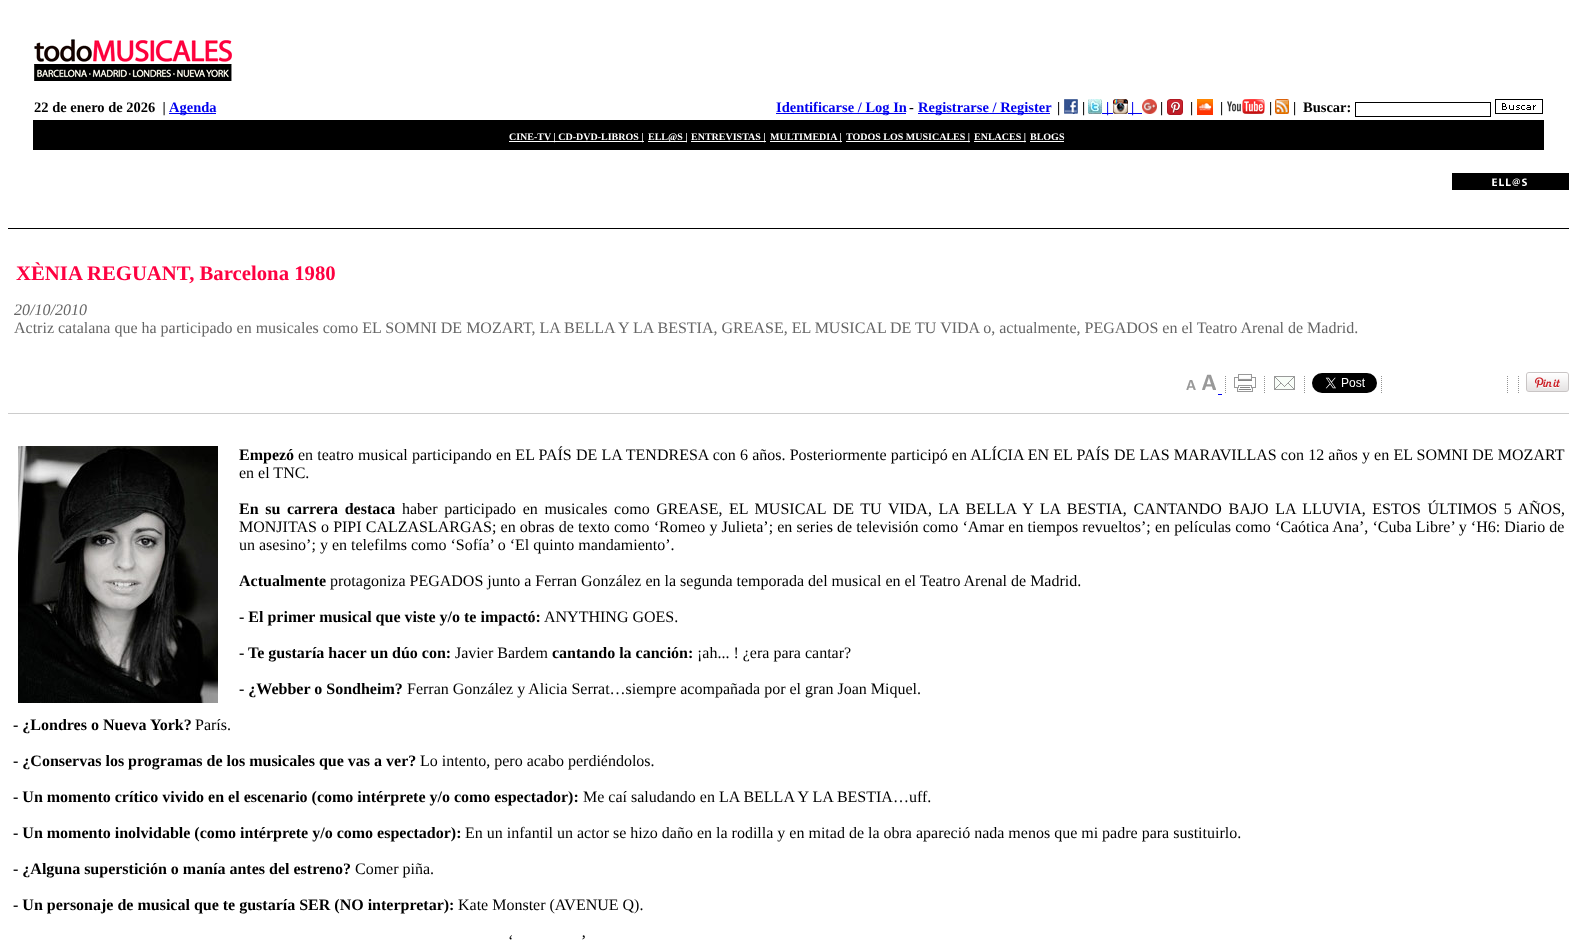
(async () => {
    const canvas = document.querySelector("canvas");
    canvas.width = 1577;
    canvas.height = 941;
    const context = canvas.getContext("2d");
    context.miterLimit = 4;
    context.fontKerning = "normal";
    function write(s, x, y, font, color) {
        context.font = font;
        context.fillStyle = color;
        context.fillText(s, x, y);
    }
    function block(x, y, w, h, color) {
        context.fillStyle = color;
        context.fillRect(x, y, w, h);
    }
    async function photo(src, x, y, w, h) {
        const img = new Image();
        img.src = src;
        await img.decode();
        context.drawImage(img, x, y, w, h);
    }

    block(0, 0, 1577, 941, "rgb(255, 255, 255)");
    await photo("media/1.png", 34, 39, 198, 42);
    write("22 de enero de 2026  |", 34, 112, "bold 14.5px Liberation Serif", "rgb(0, 0, 0)");
    block(169, 113, 47, 1, "rgb(0, 0, 238)");
    write("Agenda", 169, 112, "bold 14.5px Liberation Serif", "rgb(0, 0, 238)");
    block(776, 113, 130, 1, "rgb(0, 0, 238)");
    write("Identificarse / Log In", 776, 112, "bold 14.5px Liberation Serif", "rgb(0, 0, 238)");
    write("-", 909, 112, "bold 14.5px Liberation Serif", "rgb(0, 0, 0)");
    block(918, 113, 132, 1, "rgb(0, 0, 238)");
    write("Registrarse / Register", 918, 112, "bold 14.5px Liberation Serif", "rgb(0, 0, 238)");
    write("|", 1057, 112, "bold 14.5px Liberation Serif", "rgb(0, 0, 0)");
    await photo("media/2.png", 1064, 99, 14, 15);
    write("|", 1082, 112, "bold 14.5px Liberation Serif", "rgb(0, 0, 0)");
    await photo("media/3.png", 1088, 99, 14, 15);
    block(1102, 113, 11, 1, "rgb(0, 0, 238)");
    write("|", 1106, 112, "bold 14.5px Liberation Serif", "rgb(0, 0, 238)");
    await photo("media/4.png", 1113, 99, 15, 15);
    block(1128, 113, 14, 1, "rgb(0, 0, 238)");
    write("|", 1131, 112, "bold 14.5px Liberation Serif", "rgb(0, 0, 238)");
    await photo("media/5.png", 1142, 99, 15, 15);
    write("|", 1160, 112, "bold 14.5px Liberation Serif", "rgb(0, 0, 0)");
    await photo("media/6.png", 1167, 99, 16, 16);
    write("|", 1190, 112, "bold 14.5px Liberation Serif", "rgb(0, 0, 0)");
    await photo("media/7.png", 1197, 99, 16, 16);
    write("|", 1220, 112, "bold 14.5px Liberation Serif", "rgb(0, 0, 0)");
    await photo("media/8.png", 1227, 99, 38, 15);
    write("|", 1269, 112, "bold 14.5px Liberation Serif", "rgb(0, 0, 0)");
    await photo("media/9.png", 1275, 99, 14, 15);
    write("|", 1293, 112, "bold 14.5px Liberation Serif", "rgb(0, 0, 0)");
    write("Buscar:", 1303, 112, "bold 14.5px Liberation Serif", "rgb(0, 0, 0)");
    context.strokeStyle = "rgb(0, 0, 0)";
    context.strokeRect(1355.5, 102.5, 135, 14);
    await photo("media/10.png", 1495, 99, 48, 15);
    block(33, 120, 1511, 30, "rgb(0, 0, 0)");
    block(509, 141, 135, 1, "rgb(255, 255, 255)");
    write("CINE-TV | CD-DVD-LIBROS |", 509, 140, "bold 10px Liberation Serif", "rgb(255, 255, 255)");
    block(648, 141, 39, 1, "rgb(255, 255, 255)");
    write("ELL@S |", 648, 140, "bold 10px Liberation Serif", "rgb(255, 255, 255)");
    block(691, 141, 75, 1, "rgb(255, 255, 255)");
    write("ENTREVISTAS |", 691, 140, "bold 10px Liberation Serif", "rgb(255, 255, 255)");
    block(770, 141, 72, 1, "rgb(255, 255, 255)");
    write("MULTIMEDIA |", 770, 140, "bold 10px Liberation Serif", "rgb(255, 255, 255)");
    block(846, 141, 124, 1, "rgb(255, 255, 255)");
    write("TODOS LOS MUSICALES |", 846, 140, "bold 10px Liberation Serif", "rgb(255, 255, 255)");
    block(974, 141, 52, 1, "rgb(255, 255, 255)");
    write("ENLACES |", 974, 140, "bold 10px Liberation Serif", "rgb(255, 255, 255)");
    write("BLOGS", 1030, 140, "bold 10px Liberation Serif", "rgb(255, 255, 255)");
    block(1030, 141, 34, 1, "rgb(255, 255, 255)");
    block(8, 228, 1561, 1, "rgb(0, 0, 0)");
    await photo("media/11.png", 1452, 173, 117, 17);
    write("XÈNIA REGUANT, Barcelona 1980", 16, 280, "bold 20.75px Liberation Serif", "rgb(254, 1, 65)");
    write("20/10/2010", 14, 315, "italic 16px Liberation Serif", "rgb(102, 102, 102)");
    write("Actriz catalana que ha participado en musicales como EL SOMNI DE MOZART, LA BELLA Y LA BESTIA, GREASE, EL MUSICAL DE TU VIDA o, actualmente, PEGADOS en el Teatro Arenal de Madrid.", 14, 333, "16px Liberation Serif", "rgb(102, 102, 102)");
    block(8, 413, 1561, 1, "rgb(204, 204, 204)");
    await photo("media/12.png", 1186, 380, 10, 10);
    await photo("media/13.png", 1202, 374, 14, 16);
    await photo("media/14.png", 1225, 376, 1, 17);
    await photo("media/15.png", 1234, 374, 22, 18);
    await photo("media/14.png", 1264, 376, 1, 17);
    await photo("media/16.png", 1274, 376, 21, 14);
    await photo("media/14.png", 1304, 376, 1, 17);
    await photo("media/17.png", 1312, 373, 65, 20);
    await photo("media/14.png", 1381, 376, 1, 17);
    await photo("media/14.png", 1507, 376, 1, 17);
    await photo("media/14.png", 1518, 376, 1, 17);
    await photo("media/18.png", 1526, 372, 43, 20);
    block(1218, 394, 4, 1, "rgb(0, 0, 238)");
    await photo("media/19.png", 18, 446, 200, 257);
    write("Empezó", 239, 460, "bold 16px Liberation Serif", "rgb(0, 0, 0)");
    context.wordSpacing = "0.2px";
    write("en teatro musical participando en EL PAÍS DE LA TENDRESA con 6 años. Posteriormente participó en ALÍCIA EN EL PAÍS DE LAS MARAVILLAS con 12 años y en EL SOMNI DE MOZART", 298, 460, "16px Liberation Serif", "rgb(0, 0, 0)");
    context.wordSpacing = "0px";
    write("en el TNC.", 239, 478, "16px Liberation Serif", "rgb(0, 0, 0)");
    context.wordSpacing = "2.6px";
    write("En su carrera destaca", 239, 514, "bold 16px Liberation Serif", "rgb(0, 0, 0)");
    write("haber participado en musicales como GREASE, EL MUSICAL DE TU VIDA, LA BELLA Y LA BESTIA, CANTANDO BAJO LA LLUVIA, ESTOS ÚLTIMOS 5 AÑOS,", 402, 514, "16px Liberation Serif", "rgb(0, 0, 0)");
    context.wordSpacing = "0.15px";
    write("MONJITAS o PIPI CALZASLARGAS; en obras de texto como ‘Romeo y Julieta’; en series de televisión como ‘Amar en tiempos revueltos’; en películas como ‘Caótica Ana’, ‘Cuba Libre’ y ‘H6: Diario de", 239, 532, "16px Liberation Serif", "rgb(0, 0, 0)");
    context.wordSpacing = "0px";
    write("un asesino’; y en telefilms como ‘Sofía’ o ‘El quinto mandamiento’.", 239, 550, "16px Liberation Serif", "rgb(0, 0, 0)");
    write("Actualmente", 239, 586, "bold 16px Liberation Serif", "rgb(0, 0, 0)");
    write("protagoniza PEGADOS junto a Ferran González en la segunda temporada del musical en el Teatro Arenal de Madrid.", 330, 586, "16px Liberation Serif", "rgb(0, 0, 0)");
    write("- El primer musical que viste y/o te impactó:", 239, 622, "bold 16px Liberation Serif", "rgb(0, 0, 0)");
    write("ANYTHING GOES.", 544, 622, "16px Liberation Serif", "rgb(0, 0, 0)");
    write("- Te gustaría hacer un dúo con:", 239, 658, "bold 16px Liberation Serif", "rgb(0, 0, 0)");
    write("Javier Bardem", 455, 658, "16px Liberation Serif", "rgb(0, 0, 0)");
    write("cantando la canción:", 552, 658, "bold 16px Liberation Serif", "rgb(0, 0, 0)");
    write("¡ah... ! ¿era para cantar?", 697, 658, "16px Liberation Serif", "rgb(0, 0, 0)");
    write("- ¿Webber o Sondheim?", 239, 694, "bold 16px Liberation Serif", "rgb(0, 0, 0)");
    write("Ferran González y Alicia Serrat…siempre acompañada por el gran Joan Miquel.", 407, 694, "16px Liberation Serif", "rgb(0, 0, 0)");
    write("- ¿Londres o Nueva York?", 13, 730, "bold 16px Liberation Serif", "rgb(0, 0, 0)");
    write("París.", 195, 730, "16px Liberation Serif", "rgb(0, 0, 0)");
    write("- ¿Conservas los programas de los musicales que vas a ver?", 13, 766, "bold 16px Liberation Serif", "rgb(0, 0, 0)");
    write("Lo intento, pero acabo perdiéndolos.", 420, 766, "16px Liberation Serif", "rgb(0, 0, 0)");
    write("- Un momento crítico vivido en el escenario (como intérprete y/o como espectador):", 13, 802, "bold 16px Liberation Serif", "rgb(0, 0, 0)");
    write("Me caí saludando en LA BELLA Y LA BESTIA…uff.", 583, 802, "16px Liberation Serif", "rgb(0, 0, 0)");
    write("- Un momento inolvidable (como intérprete y/o como espectador):", 13, 838, "bold 16px Liberation Serif", "rgb(0, 0, 0)");
    write("En un infantil un actor se hizo daño en la rodilla y en mitad de la obra apareció nada menos que mi padre para sustituirlo.", 465, 838, "16px Liberation Serif", "rgb(0, 0, 0)");
    write("- ¿Alguna superstición o manía antes del estreno?", 13, 874, "bold 16px Liberation Serif", "rgb(0, 0, 0)");
    write("Comer piña.", 355, 874, "16px Liberation Serif", "rgb(0, 0, 0)");
    write("- Un personaje de musical que te gustaría SER (NO interpretar):", 13, 910, "bold 16px Liberation Serif", "rgb(0, 0, 0)");
    write("Kate Monster (AVENUE Q).", 458, 910, "16px Liberation Serif", "rgb(0, 0, 0)");
    write("‘", 508, 946, "16px Liberation Serif", "rgb(0, 0, 0)");
    write("’", 581, 946, "16px Liberation Serif", "rgb(0, 0, 0)");
})();
